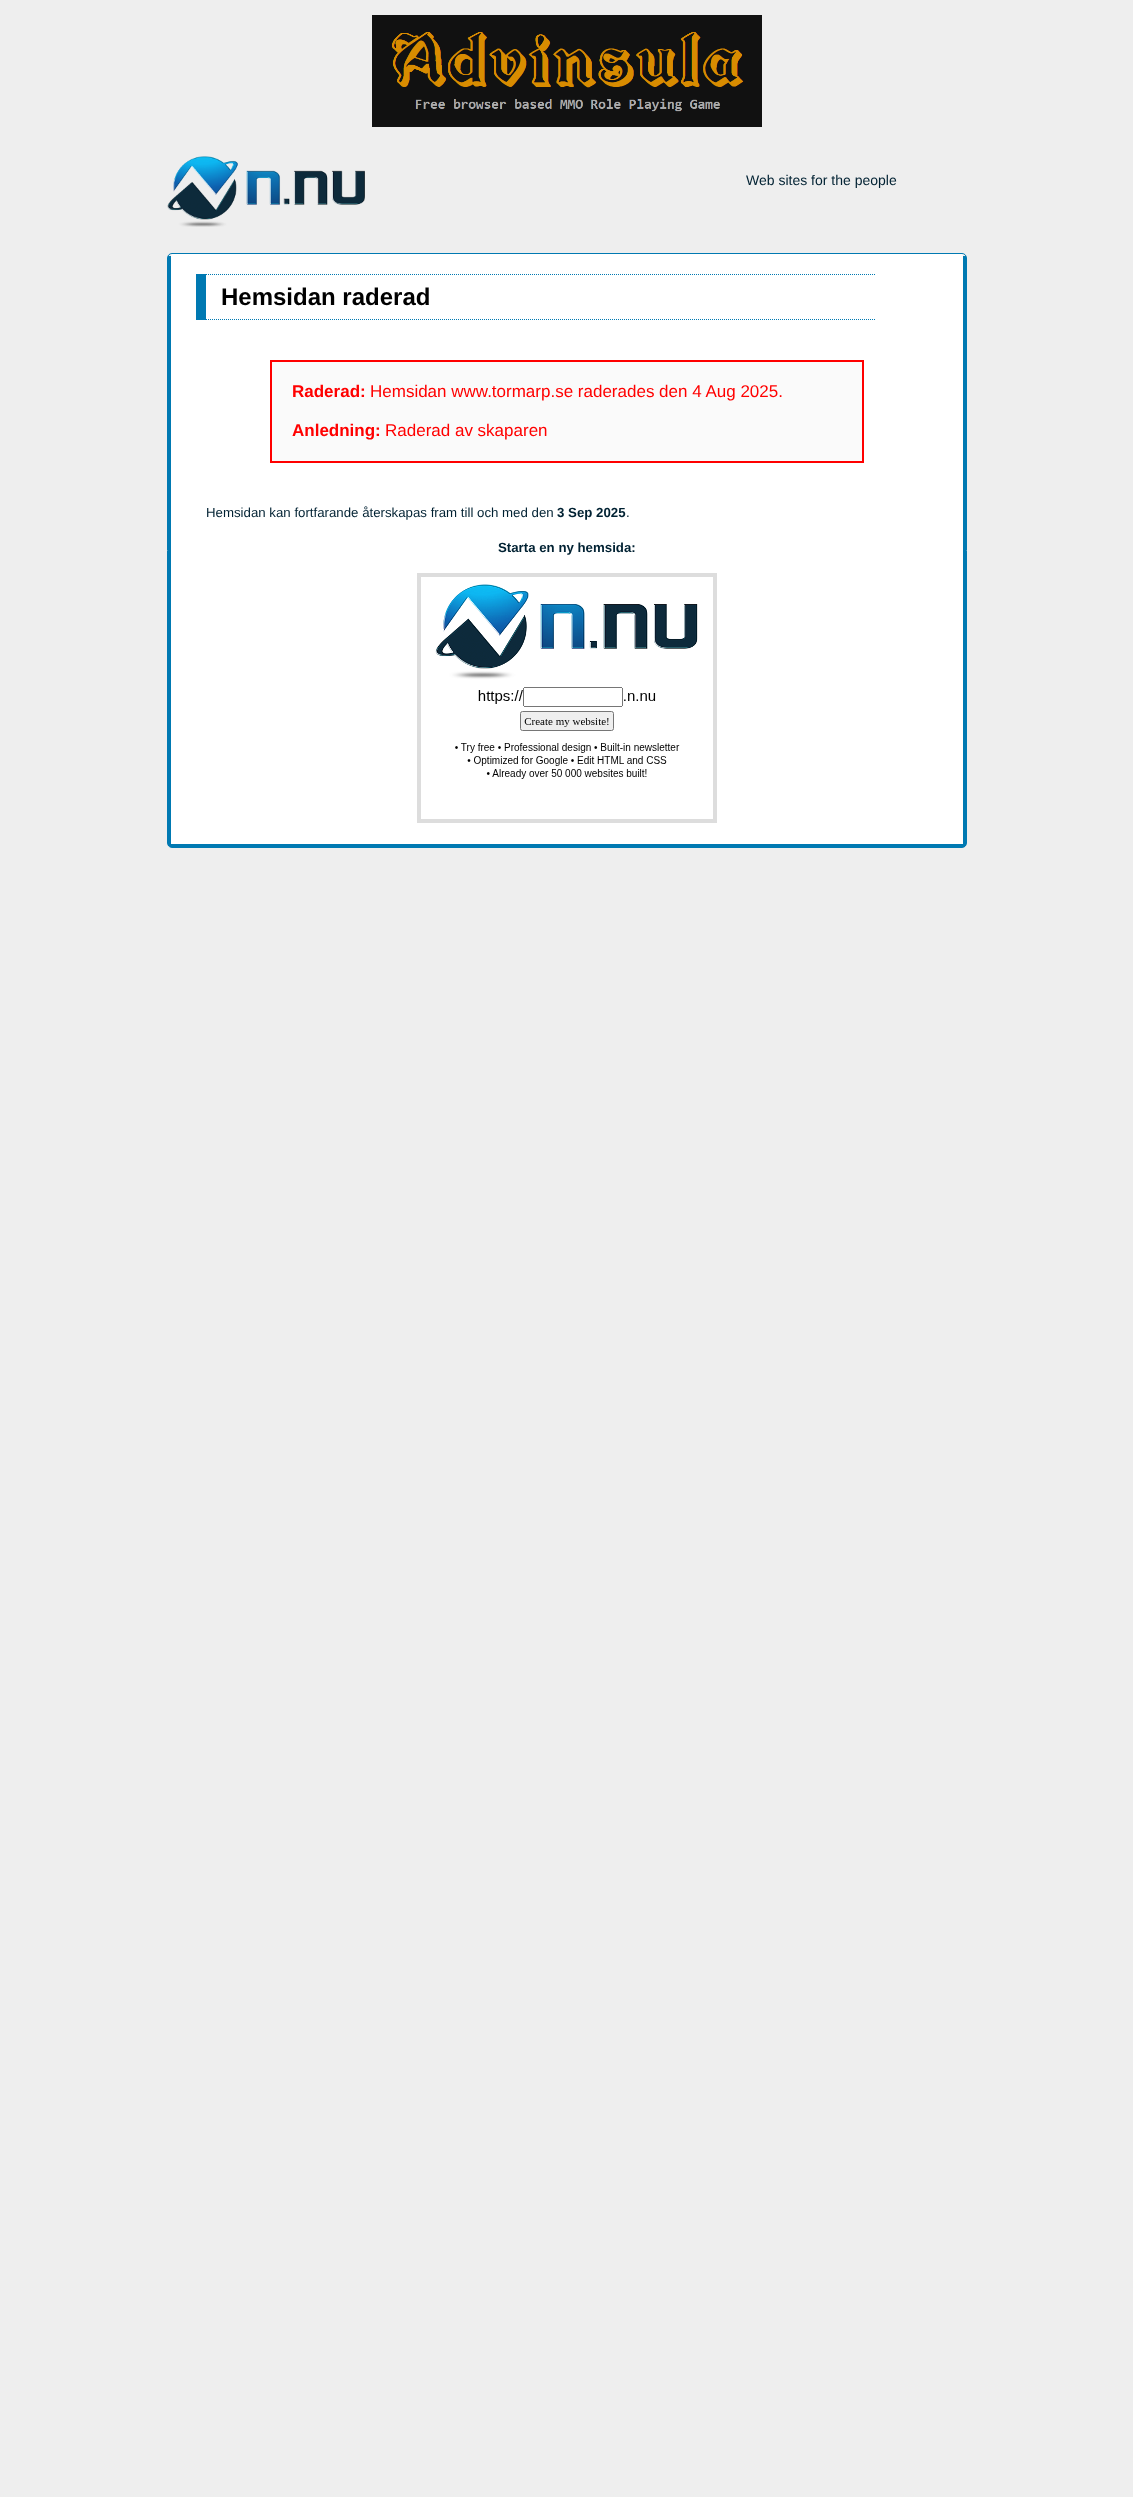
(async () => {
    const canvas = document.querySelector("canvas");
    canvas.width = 1133;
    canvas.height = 2497;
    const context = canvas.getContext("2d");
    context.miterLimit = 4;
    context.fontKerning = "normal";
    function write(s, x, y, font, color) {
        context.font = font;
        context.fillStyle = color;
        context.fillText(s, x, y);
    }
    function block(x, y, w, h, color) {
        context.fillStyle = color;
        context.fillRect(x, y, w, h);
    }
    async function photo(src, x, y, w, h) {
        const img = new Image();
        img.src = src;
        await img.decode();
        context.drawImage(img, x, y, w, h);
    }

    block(0, 0, 1133, 2497, "rgb(238, 238, 238)");
    await photo("media/1.png", 372, 15, 390, 112);
    await photo("media/2.png", 167, 156, 198, 71);
    write("Web sites for the people", 746, 185, "14px Liberation Sans", "rgb(0, 33, 50)");
    context.fillStyle = "rgb(255, 255, 255)";
    context.beginPath();
    context.moveTo(172, 254);
    context.lineTo(962, 254);
    context.bezierCurveTo(963, 254, 963, 256, 963, 258);
    context.lineTo(963, 843);
    context.bezierCurveTo(963, 844, 963, 844, 962, 844);
    context.lineTo(172, 844);
    context.bezierCurveTo(171, 844, 171, 844, 171, 843);
    context.lineTo(171, 258);
    context.bezierCurveTo(171, 256, 171, 254, 172, 254);
    context.closePath();
    context.fill();
    context.beginPath();
    context.roundRect(167.5, 253.5, 799, 594, 4.5);
    context.strokeStyle = "rgb(0, 121, 178)";
    context.stroke();
    block(963, 256, 3, 590, "rgb(0, 121, 178)");
    block(170, 844, 795, 3, "rgb(0, 121, 178)");
    block(168, 256, 3, 590, "rgb(0, 121, 178)");
    context.beginPath();
    context.moveTo(196, 274.5);
    context.lineTo(876, 274.5);
    context.setLineDash([1, 1]);
    context.stroke();
    context.beginPath();
    context.moveTo(196, 319.5);
    context.lineTo(876, 319.5);
    context.stroke();
    block(196, 274, 10, 46, "rgb(0, 121, 178)");
    write("Hemsidan raderad", 221, 305, "bold 24px Liberation Sans", "rgb(0, 0, 0)");
    context.fillStyle = "rgb(250, 250, 250)";
    context.beginPath();
    context.rect(271, 361, 592, 101);
    context.fill();
    context.strokeStyle = "rgb(255, 0, 0)";
    context.lineWidth = 2;
    context.setLineDash([]);
    context.stroke();
    write("Raderad:", 292, 397, "bold 17px Liberation Sans", "rgb(255, 0, 0)");
    write("Hemsidan www.tormarp.se raderades den 4 Aug 2025.", 370, 397, "17px Liberation Sans", "rgb(255, 0, 0)");
    write("Anledning:", 292, 436, "bold 17px Liberation Sans", "rgb(255, 0, 0)");
    write("Raderad av skaparen", 385, 436, "17px Liberation Sans", "rgb(255, 0, 0)");
    write("Hemsidan kan fortfarande återskapas fram till och med den", 206, 517, "13.25px Liberation Sans", "rgb(0, 33, 50)");
    write("3 Sep 2025", 557, 517, "bold 13.25px Liberation Sans", "rgb(0, 33, 50)");
    write(".", 626, 517, "13.25px Liberation Sans", "rgb(0, 33, 50)");
    write("Starta en ny hemsida:", 498, 552, "bold 13.25px Liberation Sans", "rgb(0, 33, 50)");
    await photo("media/3.png", 417, 573, 300, 250);
})();
